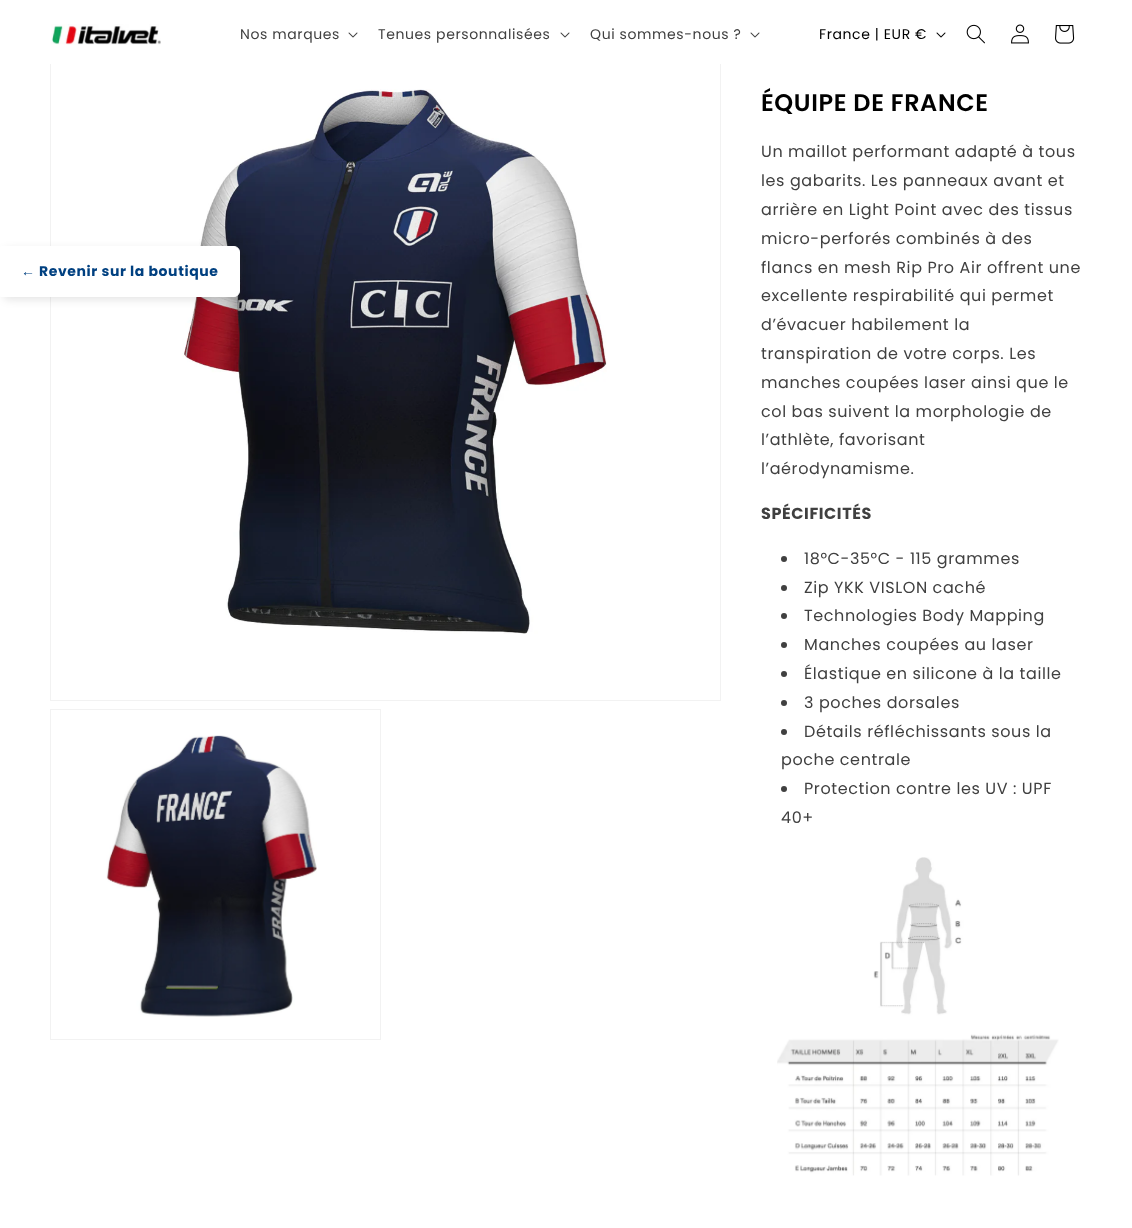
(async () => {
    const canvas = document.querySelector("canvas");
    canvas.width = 1132;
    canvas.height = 1228;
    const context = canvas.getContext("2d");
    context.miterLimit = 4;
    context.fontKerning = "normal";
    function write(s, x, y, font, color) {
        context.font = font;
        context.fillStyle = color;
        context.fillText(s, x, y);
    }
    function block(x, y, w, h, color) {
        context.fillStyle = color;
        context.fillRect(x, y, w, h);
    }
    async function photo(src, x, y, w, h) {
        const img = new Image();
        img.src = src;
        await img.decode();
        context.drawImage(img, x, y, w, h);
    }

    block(0, 0, 1132, 1228, "rgb(255, 255, 255)");
    context.strokeStyle = "rgb(242, 242, 242)";
    context.strokeRect(50.5, 30.5, 670, 670);
    block(50, 30, 671, 34, "rgb(255, 255, 255)");
    await photo("media/1.png", 51, 24, 110, 21);
    context.letterSpacing = "0.6px";
    write("Nos marques", 240, 39, "14px Poppins", "rgb(64, 64, 64)");
    await photo("media/2.png", 348, 32, 10, 6);
    write("Tenues personnalisées", 378, 39, "14px Poppins", "rgb(64, 64, 64)");
    await photo("media/2.png", 560, 32, 10, 6);
    write("Qui sommes-nous ?", 590, 39, "14px Poppins", "rgb(64, 64, 64)");
    await photo("media/2.png", 750, 32, 10, 6);
    write("France | EUR €", 819, 39, "14px Poppins", "rgb(0, 0, 0)");
    await photo("media/3.png", 936, 32, 10, 6);
    await photo("media/4.png", 966, 24, 19, 20);
    await photo("media/5.png", 1011, 24, 18, 20);
    await photo("media/6.png", 1055, 25, 20, 19);
    await photo("media/7.png", 182, 89, 425, 545);
    context.fillStyle = "rgba(0, 0, 0, 0.1)";
    context.filter = "blur(4px)";
    context.beginPath();
    context.roundRect(3, 249, 240, 51, 6);
    context.fill();
    context.filter = "none";
    context.fillStyle = "rgb(255, 255, 255)";
    context.beginPath();
    context.roundRect(0.5, 246.5, 239, 50, [0, 5.5, 5.5, 0]);
    context.fill();
    context.strokeStyle = "rgb(255, 255, 255)";
    context.stroke();
    write("←", 21, 276, "bold 14px Liberation Sans", "rgb(0, 64, 128)");
    write("Revenir sur la boutique", 39, 276, "bold 14px Poppins", "rgb(0, 64, 128)");
    context.strokeStyle = "rgb(242, 242, 242)";
    context.strokeRect(50.5, 709.5, 330, 330);
    await photo("media/8.png", 106, 735, 211, 282);
    write("ÉQUIPE DE FRANCE", 761, 111, "600 24px Poppins", "rgb(0, 0, 0)");
    write("Un maillot performant adapté à tous", 761, 157, "16px Poppins", "rgb(64, 64, 64)");
    write("les gabarits. Les panneaux avant et", 761, 186, "16px Poppins", "rgb(64, 64, 64)");
    write("arrière en Light Point avec des tissus", 761, 215, "16px Poppins", "rgb(64, 64, 64)");
    write("micro-perforés combinés à des", 761, 244, "16px Poppins", "rgb(64, 64, 64)");
    write("flancs en mesh Rip Pro Air offrent une", 761, 273, "16px Poppins", "rgb(64, 64, 64)");
    write("excellente respirabilité qui permet", 761, 301, "16px Poppins", "rgb(64, 64, 64)");
    write("d’évacuer habilement la", 761, 330, "16px Poppins", "rgb(64, 64, 64)");
    write("transpiration de votre corps. Les", 761, 359, "16px Poppins", "rgb(64, 64, 64)");
    write("manches coupées laser ainsi que le", 761, 388, "16px Poppins", "rgb(64, 64, 64)");
    write("col bas suivent la morphologie de", 761, 417, "16px Poppins", "rgb(64, 64, 64)");
    write("l’athlète, favorisant", 761, 445, "16px Poppins", "rgb(64, 64, 64)");
    write("l’aérodynamisme.", 761, 474, "16px Poppins", "rgb(64, 64, 64)");
    write("SPÉCIFICITÉS", 761, 519, "bold 16px Poppins", "rgb(64, 64, 64)");
    context.beginPath();
    context.arc(784, 559, 3, 0, Math.PI * 2);
    context.fill();
    write("18°C-35°C - 115 grammes", 804, 564, "16px Poppins", "rgb(64, 64, 64)");
    context.beginPath();
    context.arc(784, 588, 3, 0, Math.PI * 2);
    context.fill();
    write("Zip YKK VISLON caché", 804, 593, "16px Poppins", "rgb(64, 64, 64)");
    context.beginPath();
    context.arc(784, 616, 3, 0, Math.PI * 2);
    context.fill();
    write("Technologies Body Mapping", 804, 621, "16px Poppins", "rgb(64, 64, 64)");
    context.beginPath();
    context.arc(784, 645, 3, 0, Math.PI * 2);
    context.fill();
    write("Manches coupées au laser", 804, 650, "16px Poppins", "rgb(64, 64, 64)");
    context.beginPath();
    context.arc(784, 674, 3, 0, Math.PI * 2);
    context.fill();
    write("Élastique en silicone à la taille", 804, 679, "16px Poppins", "rgb(64, 64, 64)");
    context.beginPath();
    context.arc(784, 703, 3, 0, Math.PI * 2);
    context.fill();
    write("3 poches dorsales", 804, 708, "16px Poppins", "rgb(64, 64, 64)");
    context.beginPath();
    context.arc(784, 732, 3, 0, Math.PI * 2);
    context.fill();
    write("Détails réfléchissants sous la", 804, 737, "16px Poppins", "rgb(64, 64, 64)");
    write("poche centrale", 781, 765, "16px Poppins", "rgb(64, 64, 64)");
    context.beginPath();
    context.arc(784, 789, 3, 0, Math.PI * 2);
    context.fill();
    write("Protection contre les UV : UPF", 804, 794, "16px Poppins", "rgb(64, 64, 64)");
    write("40+", 781, 823, "16px Poppins", "rgb(64, 64, 64)");
    await photo("media/9.png", 777, 857, 282, 319);
})();
